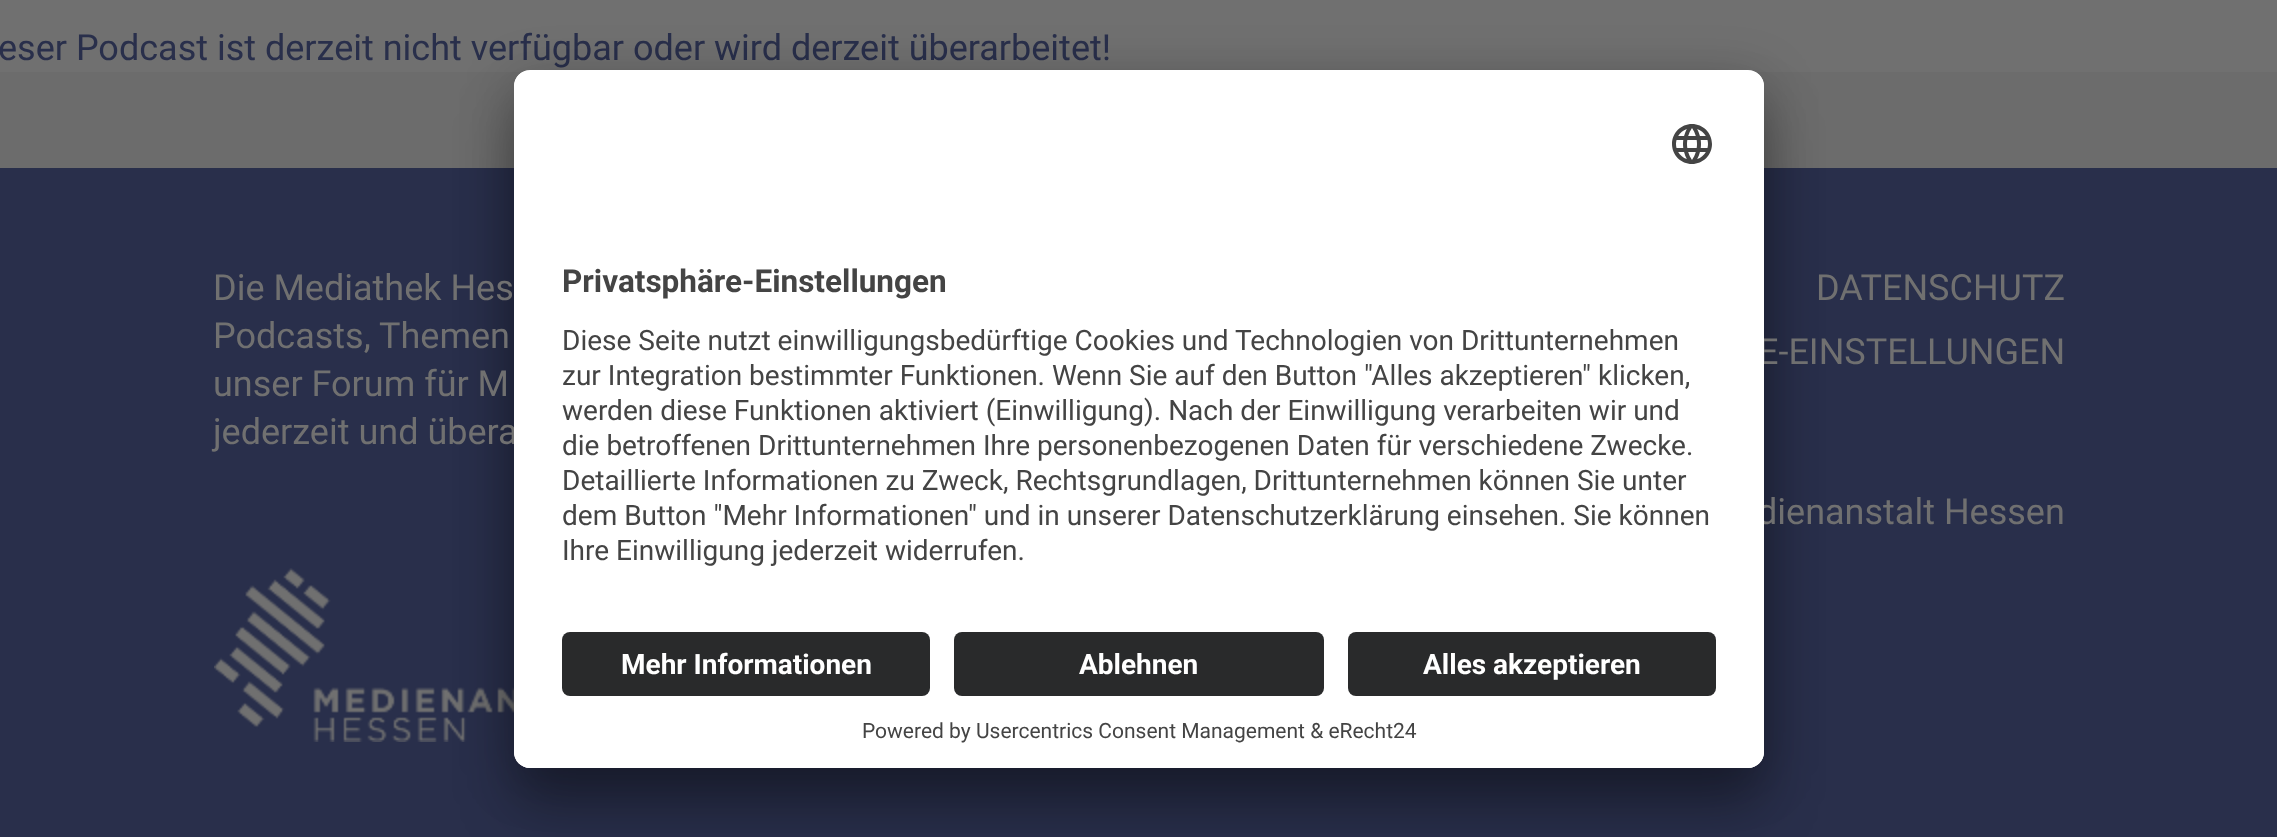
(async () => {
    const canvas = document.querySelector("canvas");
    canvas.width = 2277;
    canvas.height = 837;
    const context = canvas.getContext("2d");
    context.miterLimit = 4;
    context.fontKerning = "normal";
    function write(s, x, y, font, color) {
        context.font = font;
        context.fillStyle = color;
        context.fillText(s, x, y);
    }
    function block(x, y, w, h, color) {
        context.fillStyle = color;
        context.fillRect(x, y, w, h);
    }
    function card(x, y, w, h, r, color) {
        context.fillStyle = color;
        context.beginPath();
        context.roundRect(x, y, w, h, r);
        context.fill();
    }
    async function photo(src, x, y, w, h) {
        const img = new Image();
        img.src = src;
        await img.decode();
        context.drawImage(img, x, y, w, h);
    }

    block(0, 0, 2277, 837, "rgb(108, 108, 108)");
    block(0, 0, 2277, 72, "rgb(112, 112, 112)");
    write("eser Podcast ist derzeit nicht verfügbar oder wird derzeit überarbeitet!", -2, 60, "36px Roboto", "rgb(41, 47, 75)");
    block(0, 168, 2277, 669, "rgb(41, 47, 75)");
    await photo("media/2.png", 214, 568, 300, 174);
    context.fillStyle = "rgba(0, 0, 0, 0.3)";
    context.filter = "blur(28px)";
    context.beginPath();
    context.roundRect(514, 110, 1250, 698, 16);
    context.fill();
    context.filter = "none";
    context.fillStyle = "rgba(0, 0, 0, 0.22)";
    context.filter = "blur(26px)";
    context.beginPath();
    context.roundRect(514, 80, 1250, 698, 16);
    context.fill();
    context.filter = "none";
    write("jederzeit und übera", 213, 444, "36px Roboto", "rgb(112, 112, 112)");
    write("E-EINSTELLUNGEN", 1758, 364, "36px Roboto", "rgb(112, 112, 112)");
    write("dienanstalt Hessen", 1757, 524, "36px Roboto", "rgb(112, 112, 112)");
    card(514, 70, 1250, 698, 16, "rgb(255, 255, 255)");
    context.save();
    context.beginPath();
    context.roundRect(514, 70, 1250, 698, 16);
    context.clip();
    context.beginPath();
    context.roundRect(514, 70, 1250, 546, [16, 16, 0, 0]);
    context.clip();
    block(514, 72, 1250, 544, "rgb(255, 255, 255)");
    context.restore();
    await photo("media/1.png", 1672, 124, 40, 40);
    write("Privatsphäre-Einstellungen", 562, 292, "bold 31.5px Roboto", "rgb(68, 68, 68)");
    write("Diese Seite nutzt einwilligungsbedürftige Cookies und Technologien von Drittunternehmen", 562, 350, "28px Roboto", "rgb(68, 68, 68)");
    write("zur Integration bestimmter Funktionen. Wenn Sie auf den Button \"Alles akzeptieren\" klicken,", 562, 385, "28px Roboto", "rgb(68, 68, 68)");
    write("werden diese Funktionen aktiviert (Einwilligung). Nach der Einwilligung verarbeiten wir und", 562, 420, "28px Roboto", "rgb(68, 68, 68)");
    write("die betroffenen Drittunternehmen Ihre personenbezogenen Daten für verschiedene Zwecke.", 562, 455, "28px Roboto", "rgb(68, 68, 68)");
    write("Detaillierte Informationen zu Zweck, Rechtsgrundlagen, Drittunternehmen können Sie unter", 562, 490, "28px Roboto", "rgb(68, 68, 68)");
    write("dem Button \"Mehr Informationen\" und in unserer Datenschutzerklärung einsehen. Sie können", 562, 525, "28px Roboto", "rgb(68, 68, 68)");
    write("Ihre Einwilligung jederzeit widerrufen.", 562, 560, "28px Roboto", "rgb(68, 68, 68)");
    context.fillStyle = "rgb(255, 255, 255)";
    context.beginPath();
    context.roundRect(514, 616, 1250, 152, [0, 0, 16, 16]);
    context.fill();
    card(562, 632, 368, 64, 8, "rgb(41, 42, 43)");
    write("Mehr Informationen", 621, 674, "bold 28px Roboto", "rgb(255, 255, 255)");
    card(954, 632, 370, 64, 8, "rgb(41, 42, 43)");
    write("Ablehnen", 1079, 674, "bold 28px Roboto", "rgb(255, 255, 255)");
    card(1348, 632, 368, 64, 8, "rgb(41, 42, 43)");
    write("Alles akzeptieren", 1423, 674, "bold 28px Roboto", "rgb(255, 255, 255)");
    write("Powered by Usercentrics Consent Management & eRecht24", 862, 738, "21px Roboto", "rgb(68, 68, 68)");
    write("Die Mediathek Hes", 213, 300, "36px Roboto", "rgb(112, 112, 112)");
    write("Podcasts, Themen", 213, 348, "36px Roboto", "rgb(112, 112, 112)");
    write("unser Forum für M", 213, 396, "36px Roboto", "rgb(112, 112, 112)");
    write("DATENSCHUTZ", 1816, 300, "36px Roboto", "rgb(112, 112, 112)");
})();
